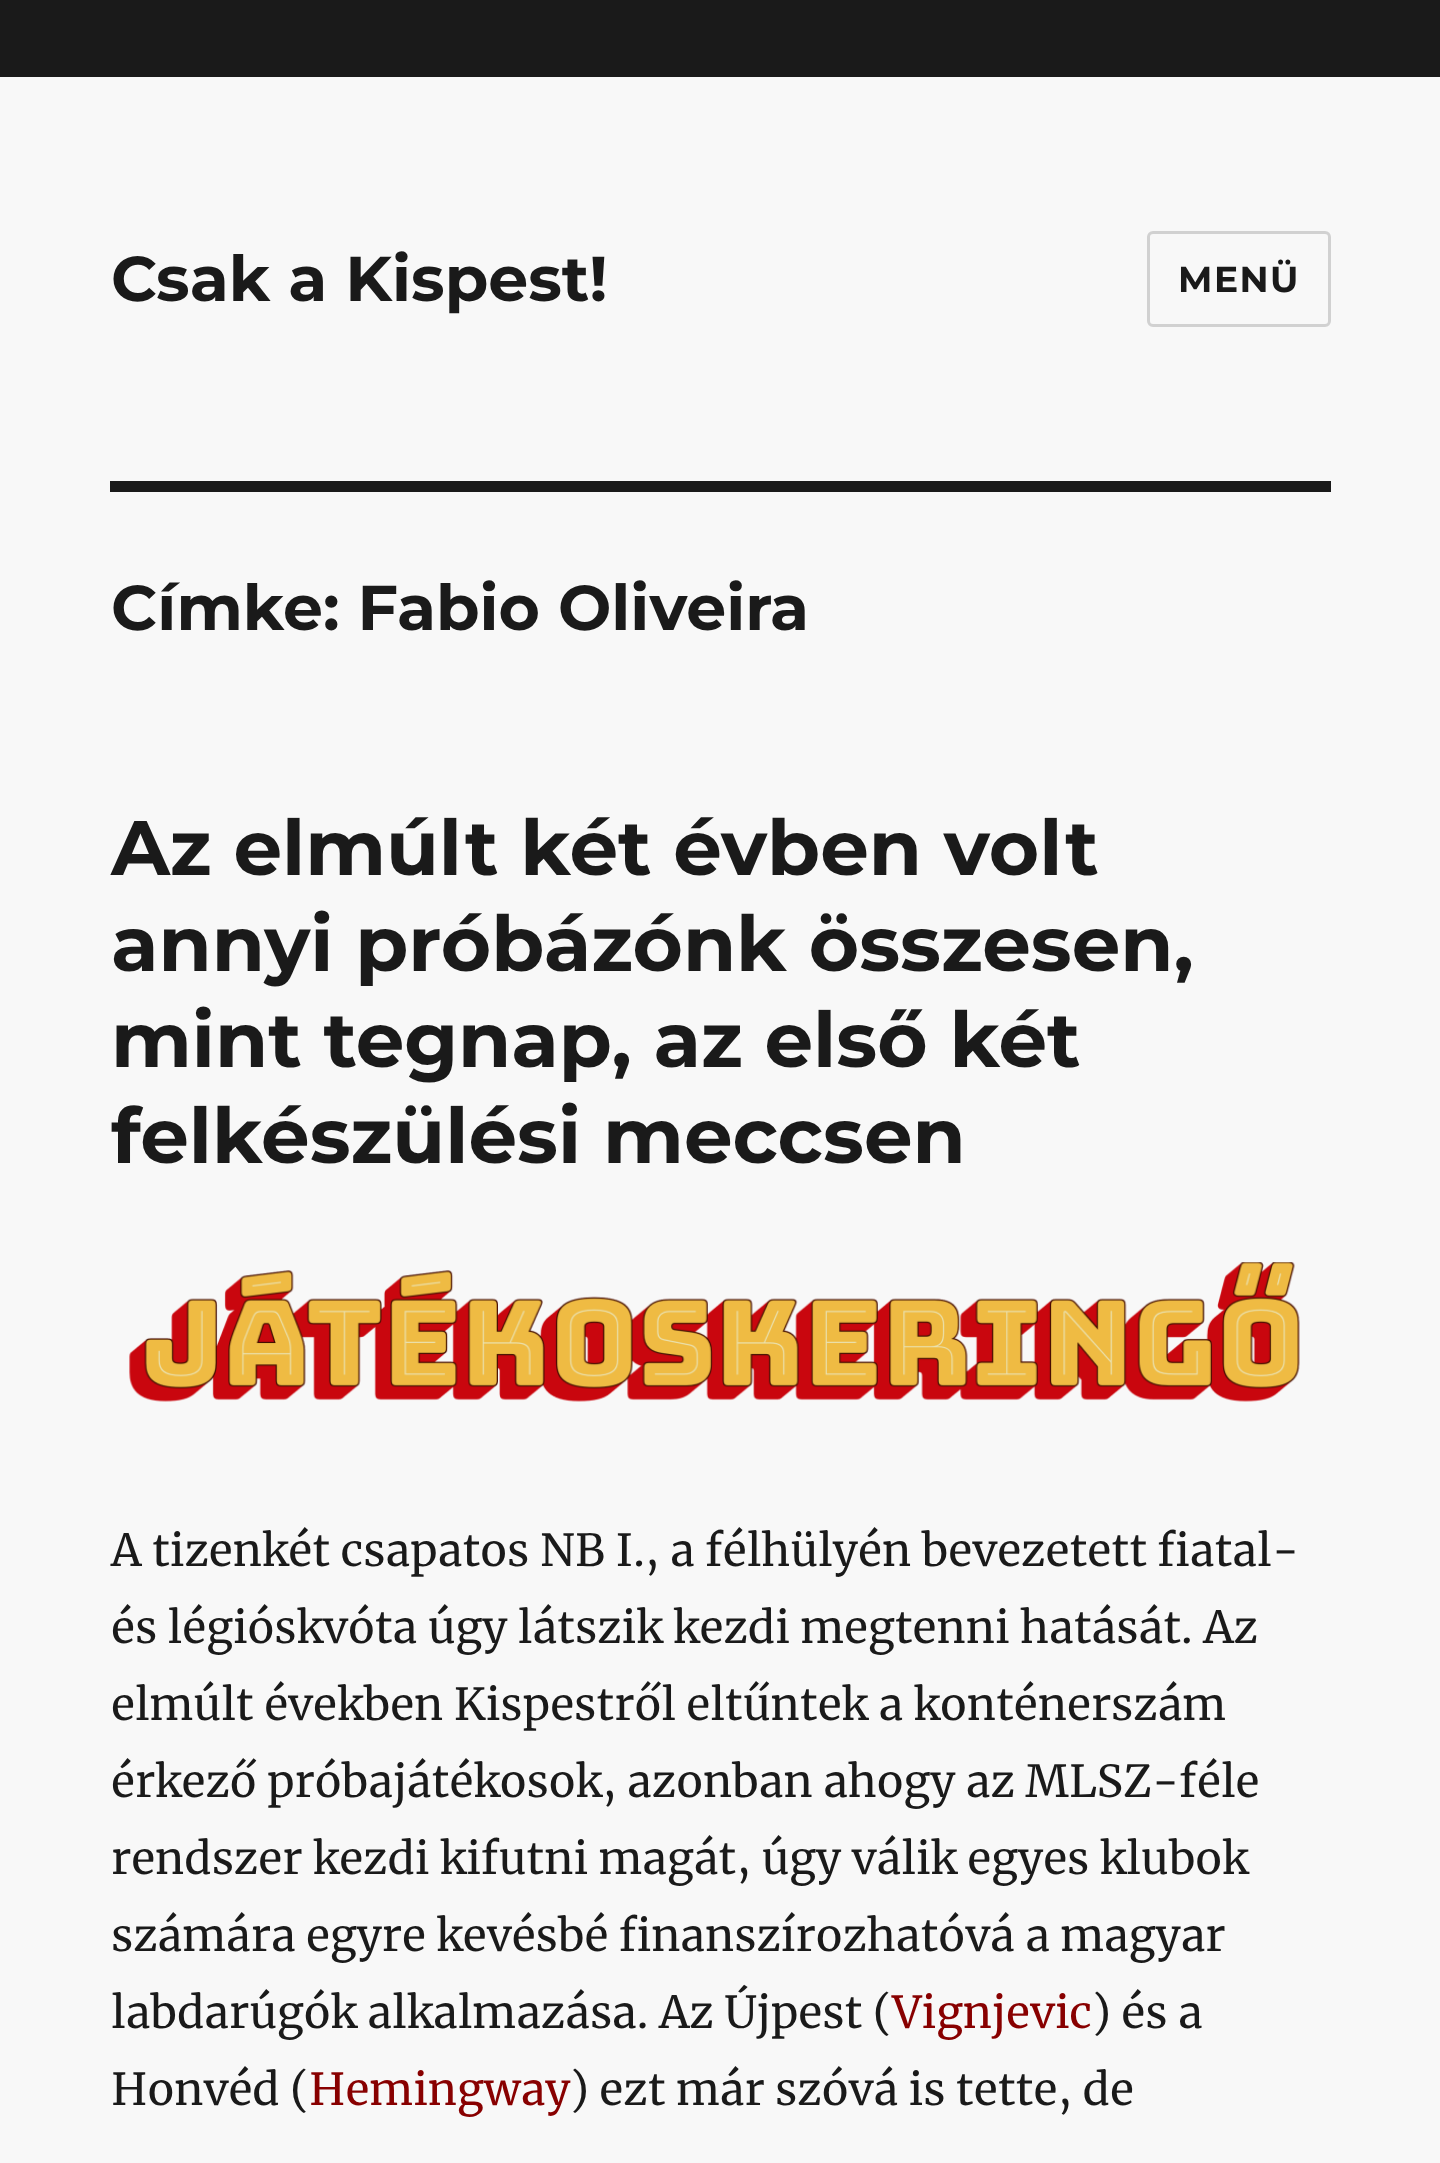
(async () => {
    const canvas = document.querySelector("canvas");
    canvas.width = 1440;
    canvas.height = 2163;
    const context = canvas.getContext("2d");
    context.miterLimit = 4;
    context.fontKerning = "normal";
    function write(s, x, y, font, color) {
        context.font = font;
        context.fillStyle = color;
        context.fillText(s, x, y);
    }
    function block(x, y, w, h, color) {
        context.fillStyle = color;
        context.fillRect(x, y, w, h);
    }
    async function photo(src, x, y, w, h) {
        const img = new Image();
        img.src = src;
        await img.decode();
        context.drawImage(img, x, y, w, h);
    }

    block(0, 0, 1440, 2163, "rgb(26, 26, 26)");
    block(0, 77, 1440, 2086, "rgb(248, 248, 248)");
    write("Csak a Kispest!", 111, 301, "100 63.25px Montserrat", "rgb(26, 26, 26)");
    context.beginPath();
    context.roundRect(1148.5, 232.5, 181, 93, 4.5);
    context.strokeStyle = "rgb(209, 209, 209)";
    context.lineWidth = 3;
    context.stroke();
    context.letterSpacing = "1.5px";
    write("MENÜ", 1178, 292, "100 36px Montserrat", "rgb(26, 26, 26)");
    block(110, 481, 1221, 11, "rgb(26, 26, 26)");
    context.letterSpacing = "0px";
    write("Címke: Fabio Oliveira", 111, 630, "100 63.25px Montserrat", "rgb(26, 26, 26)");
    write("Az elmúlt két évben volt", 111, 875, "100 77px Montserrat", "rgb(26, 26, 26)");
    write("annyi próbázónk összesen,", 111, 971, "100 77px Montserrat", "rgb(26, 26, 26)");
    write("mint tegnap, az első két", 111, 1067, "100 77px Montserrat", "rgb(26, 26, 26)");
    write("felkészülési meccsen", 111, 1163, "100 77px Montserrat", "rgb(26, 26, 26)");
    await photo("media/1.png", 129, 1262, 1171, 140);
    write("A tizenkét csapatos NB I., a félhülyén bevezetett fiatal-", 111, 1566, "44px Merriweather", "rgb(26, 26, 26)");
    write("és légióskvóta úgy látszik kezdi megtenni hatását. Az", 111, 1643, "44px Merriweather", "rgb(26, 26, 26)");
    write("elmúlt években Kispestről eltűntek a konténerszám", 111, 1720, "44px Merriweather", "rgb(26, 26, 26)");
    write("érkező próbajátékosok, azonban ahogy az MLSZ-féle", 111, 1797, "44px Merriweather", "rgb(26, 26, 26)");
    write("rendszer kezdi kifutni magát, úgy válik egyes klubok", 111, 1874, "44px Merriweather", "rgb(26, 26, 26)");
    write("számára egyre kevésbé finanszírozhatóvá a magyar", 111, 1951, "44px Merriweather", "rgb(26, 26, 26)");
    write("labdarúgók alkalmazása. Az Újpest (", 111, 2028, "44px Merriweather", "rgb(26, 26, 26)");
    write("Vignjevic", 892, 2028, "44px Merriweather", "rgb(136, 0, 0)");
    write(") és a", 1092, 2028, "44px Merriweather", "rgb(26, 26, 26)");
    write("Honvéd (", 111, 2105, "44px Merriweather", "rgb(26, 26, 26)");
    write("Hemingway", 309, 2105, "44px Merriweather", "rgb(136, 0, 0)");
    write(") ezt már szóvá is tette, de", 570, 2105, "44px Merriweather", "rgb(26, 26, 26)");
})();
